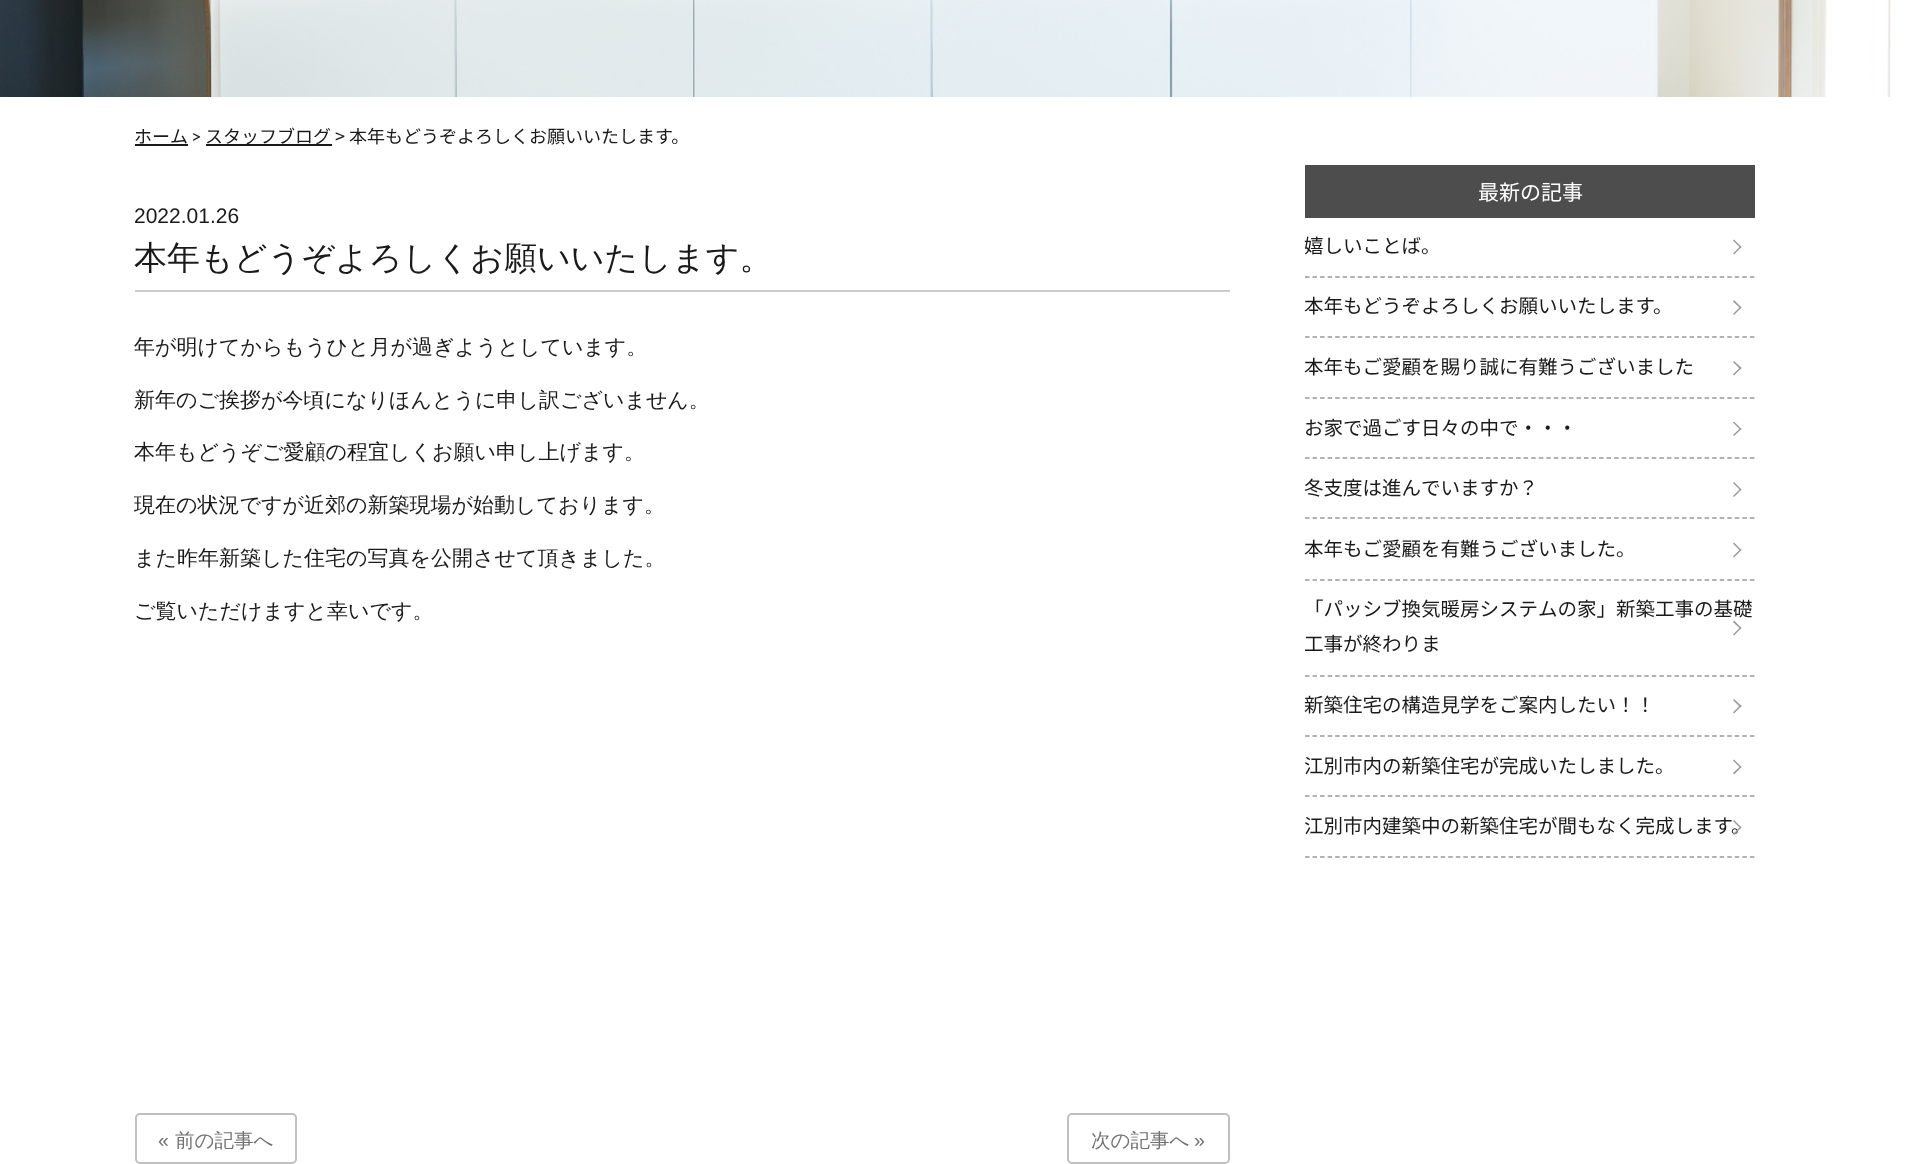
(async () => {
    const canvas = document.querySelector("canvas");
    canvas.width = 1918;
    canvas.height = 1164;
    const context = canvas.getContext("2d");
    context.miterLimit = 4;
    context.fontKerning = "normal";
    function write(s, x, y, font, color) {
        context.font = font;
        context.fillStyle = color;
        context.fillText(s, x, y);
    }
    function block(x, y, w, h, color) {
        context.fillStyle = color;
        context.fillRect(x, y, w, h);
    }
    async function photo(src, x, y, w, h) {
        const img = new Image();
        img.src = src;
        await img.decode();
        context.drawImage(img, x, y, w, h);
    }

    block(0, 0, 1918, 1164, "rgb(255, 255, 255)");
    await photo("media/1.png", 0, 0, 1891, 97);
    write("ホーム", 134, 143, "18px Noto Sans JP", "rgb(26, 26, 26)");
    block(135, 144, 53, 2, "rgb(26, 26, 26)");
    write(">", 191, 143, "18px Lato", "rgb(26, 26, 26)");
    block(206, 144, 126, 2, "rgb(26, 26, 26)");
    write("スタッフブログ", 205, 143, "18px Noto Sans JP", "rgb(26, 26, 26)");
    write("> 本年もどうぞよろしくお願いいたします。", 335, 143, "18px Noto Sans JP", "rgb(26, 26, 26)");
    block(135, 290, 1095, 2, "rgb(204, 204, 204)");
    write("2022.01.26", 134, 223, "21px Liberation Sans", "rgb(26, 26, 26)");
    write("本年もどうぞよろしくお願いいたします。", 134, 269, "500 33px WenQuanYi Zen Hei", "rgb(26, 26, 26)");
    write("年が明けてからもうひと月が過ぎようとしています。", 134, 354, "500 21px WenQuanYi Zen Hei", "rgb(26, 26, 26)");
    write("新年のご挨拶が今頃になりほんとうに申し訳ございません。", 134, 407, "500 21px WenQuanYi Zen Hei", "rgb(26, 26, 26)");
    write("本年もどうぞご愛顧の程宜しくお願い申し上げます。", 134, 459, "500 21px WenQuanYi Zen Hei", "rgb(26, 26, 26)");
    write("現在の状況ですが近郊の新築現場が始動しております。", 134, 512, "500 21px WenQuanYi Zen Hei", "rgb(26, 26, 26)");
    write("また昨年新築した住宅の写真を公開させて頂きました。", 134, 565, "500 21px WenQuanYi Zen Hei", "rgb(26, 26, 26)");
    write("ご覧いただけますと幸いです。", 134, 618, "500 21px WenQuanYi Zen Hei", "rgb(26, 26, 26)");
    context.beginPath();
    context.roundRect(136, 1114, 160, 49, 4);
    context.strokeStyle = "rgb(192, 192, 192)";
    context.lineWidth = 2;
    context.stroke();
    write("«", 158, 1147, "19.5px Liberation Sans", "rgb(113, 113, 113)");
    write("前の記事へ", 175, 1147, "500 19.5px WenQuanYi Zen Hei", "rgb(113, 113, 113)");
    context.beginPath();
    context.roundRect(1068, 1114, 161, 49, 4);
    context.stroke();
    write("次の記事へ", 1091, 1147, "500 19.5px WenQuanYi Zen Hei", "rgb(113, 113, 113)");
    write("»", 1194, 1147, "19.5px Liberation Sans", "rgb(113, 113, 113)");
    block(1305, 165, 450, 53, "rgb(77, 77, 77)");
    write("最新の記事", 1478, 200, "21px Noto Sans JP", "rgb(255, 255, 255)");
    context.beginPath();
    context.moveTo(1305, 277);
    context.lineTo(1755, 277);
    context.strokeStyle = "rgb(153, 153, 153)";
    context.lineWidth = 1.5;
    context.setLineDash([4.5, 3.04]);
    context.stroke();
    write("嬉しいことば。", 1304, 253, "19.5px Noto Sans JP", "rgb(26, 26, 26)");
    context.fillStyle = "rgb(153, 153, 153)";
    context.beginPath();
    context.moveTo(1734, 239.5);
    context.lineTo(1741.5, 247);
    context.lineTo(1740.5, 248);
    context.lineTo(1733, 240.5);
    context.closePath();
    context.fill();
    context.beginPath();
    context.moveTo(1740.5, 246);
    context.lineTo(1741.5, 247);
    context.lineTo(1734, 254.5);
    context.lineTo(1733, 253.5);
    context.closePath();
    context.fill();
    context.beginPath();
    context.moveTo(1305, 337);
    context.lineTo(1755, 337);
    context.stroke();
    write("本年もどうぞよろしくお願いいたします。", 1304, 313, "19.5px Noto Sans JP", "rgb(26, 26, 26)");
    context.fillStyle = "rgb(153, 153, 153)";
    context.beginPath();
    context.moveTo(1734, 300);
    context.lineTo(1741.5, 307.5);
    context.lineTo(1740.5, 308.5);
    context.lineTo(1733, 301.5);
    context.closePath();
    context.fill();
    context.beginPath();
    context.moveTo(1740.5, 306.5);
    context.lineTo(1741.5, 307.5);
    context.lineTo(1734, 315);
    context.lineTo(1733, 314);
    context.closePath();
    context.fill();
    context.beginPath();
    context.moveTo(1305, 398);
    context.lineTo(1755, 398);
    context.stroke();
    write("本年もご愛顧を賜り誠に有難うございました", 1304, 374, "19.5px Noto Sans JP", "rgb(26, 26, 26)");
    context.fillStyle = "rgb(153, 153, 153)";
    context.beginPath();
    context.moveTo(1734, 361);
    context.lineTo(1741.5, 368);
    context.lineTo(1740.5, 369.5);
    context.lineTo(1733, 362);
    context.closePath();
    context.fill();
    context.beginPath();
    context.moveTo(1740.5, 367);
    context.lineTo(1741.5, 368);
    context.lineTo(1734, 375.5);
    context.lineTo(1733, 374.5);
    context.closePath();
    context.fill();
    context.beginPath();
    context.moveTo(1305, 458);
    context.lineTo(1755, 458);
    context.stroke();
    write("お家で過ごす日々の中で・・・", 1304, 435, "19.5px Noto Sans JP", "rgb(26, 26, 26)");
    context.fillStyle = "rgb(153, 153, 153)";
    context.beginPath();
    context.moveTo(1734, 421.5);
    context.lineTo(1741.5, 429);
    context.lineTo(1740.5, 430);
    context.lineTo(1733, 422.5);
    context.closePath();
    context.fill();
    context.beginPath();
    context.moveTo(1740.5, 428);
    context.lineTo(1741.5, 429);
    context.lineTo(1734, 436);
    context.lineTo(1733, 435);
    context.closePath();
    context.fill();
    context.beginPath();
    context.moveTo(1305, 518);
    context.lineTo(1755, 518);
    context.stroke();
    write("冬支度は進んでいますか？", 1304, 495, "19.5px Noto Sans JP", "rgb(26, 26, 26)");
    context.fillStyle = "rgb(153, 153, 153)";
    context.beginPath();
    context.moveTo(1734, 482);
    context.lineTo(1741.5, 489.5);
    context.lineTo(1740.5, 490.5);
    context.lineTo(1733, 483);
    context.closePath();
    context.fill();
    context.beginPath();
    context.moveTo(1740.5, 488.5);
    context.lineTo(1741.5, 489.5);
    context.lineTo(1734, 497);
    context.lineTo(1733, 496);
    context.closePath();
    context.fill();
    context.beginPath();
    context.moveTo(1305, 580);
    context.lineTo(1755, 580);
    context.stroke();
    write("本年もご愛顧を有難うございました。", 1304, 556, "19.5px Noto Sans JP", "rgb(26, 26, 26)");
    context.fillStyle = "rgb(153, 153, 153)";
    context.beginPath();
    context.moveTo(1734, 542.5);
    context.lineTo(1741.5, 550);
    context.lineTo(1740.5, 551);
    context.lineTo(1733, 543.5);
    context.closePath();
    context.fill();
    context.beginPath();
    context.moveTo(1740.5, 549);
    context.lineTo(1741.5, 550);
    context.lineTo(1734, 557.5);
    context.lineTo(1733, 556.5);
    context.closePath();
    context.fill();
    context.beginPath();
    context.moveTo(1305, 676);
    context.lineTo(1755, 676);
    context.stroke();
    write("「パッシブ換気暖房システムの家」新築工事の基礎", 1304, 616, "19.5px Noto Sans JP", "rgb(26, 26, 26)");
    context.fillStyle = "rgb(153, 153, 153)";
    context.beginPath();
    context.moveTo(1734, 620.5);
    context.lineTo(1741.5, 628);
    context.lineTo(1740.5, 629);
    context.lineTo(1733, 622);
    context.closePath();
    context.fill();
    context.beginPath();
    context.moveTo(1740.5, 627);
    context.lineTo(1741.5, 628);
    context.lineTo(1734, 635.5);
    context.lineTo(1733, 634.5);
    context.closePath();
    context.fill();
    write("工事が終わりま", 1304, 651, "19.5px Noto Sans JP", "rgb(26, 26, 26)");
    context.beginPath();
    context.moveTo(1305, 736);
    context.lineTo(1755, 736);
    context.stroke();
    write("新築住宅の構造見学をご案内したい！！", 1304, 712, "19.5px Noto Sans JP", "rgb(26, 26, 26)");
    context.fillStyle = "rgb(153, 153, 153)";
    context.beginPath();
    context.moveTo(1734, 699);
    context.lineTo(1741.5, 706);
    context.lineTo(1740.5, 707.5);
    context.lineTo(1733, 700);
    context.closePath();
    context.fill();
    context.beginPath();
    context.moveTo(1740.5, 705);
    context.lineTo(1741.5, 706);
    context.lineTo(1734, 713.5);
    context.lineTo(1733, 712.5);
    context.closePath();
    context.fill();
    context.beginPath();
    context.moveTo(1305, 796);
    context.lineTo(1755, 796);
    context.stroke();
    write("江別市内の新築住宅が完成いたしました。", 1304, 773, "19.5px Noto Sans JP", "rgb(26, 26, 26)");
    context.fillStyle = "rgb(153, 153, 153)";
    context.beginPath();
    context.moveTo(1734, 759.5);
    context.lineTo(1741.5, 767);
    context.lineTo(1740.5, 768);
    context.lineTo(1733, 760.5);
    context.closePath();
    context.fill();
    context.beginPath();
    context.moveTo(1740.5, 766);
    context.lineTo(1741.5, 767);
    context.lineTo(1734, 774.5);
    context.lineTo(1733, 773);
    context.closePath();
    context.fill();
    context.beginPath();
    context.moveTo(1305, 857);
    context.lineTo(1755, 857);
    context.stroke();
    write("江別市内建築中の新築住宅が間もなく完成します。", 1304, 833, "19.5px Noto Sans JP", "rgb(26, 26, 26)");
    context.fillStyle = "rgb(153, 153, 153)";
    context.beginPath();
    context.moveTo(1734, 820);
    context.lineTo(1741.5, 827.5);
    context.lineTo(1740.5, 828.5);
    context.lineTo(1733, 821);
    context.closePath();
    context.fill();
    context.beginPath();
    context.moveTo(1740.5, 826.5);
    context.lineTo(1741.5, 827.5);
    context.lineTo(1734, 835);
    context.lineTo(1733, 834);
    context.closePath();
    context.fill();
})();
